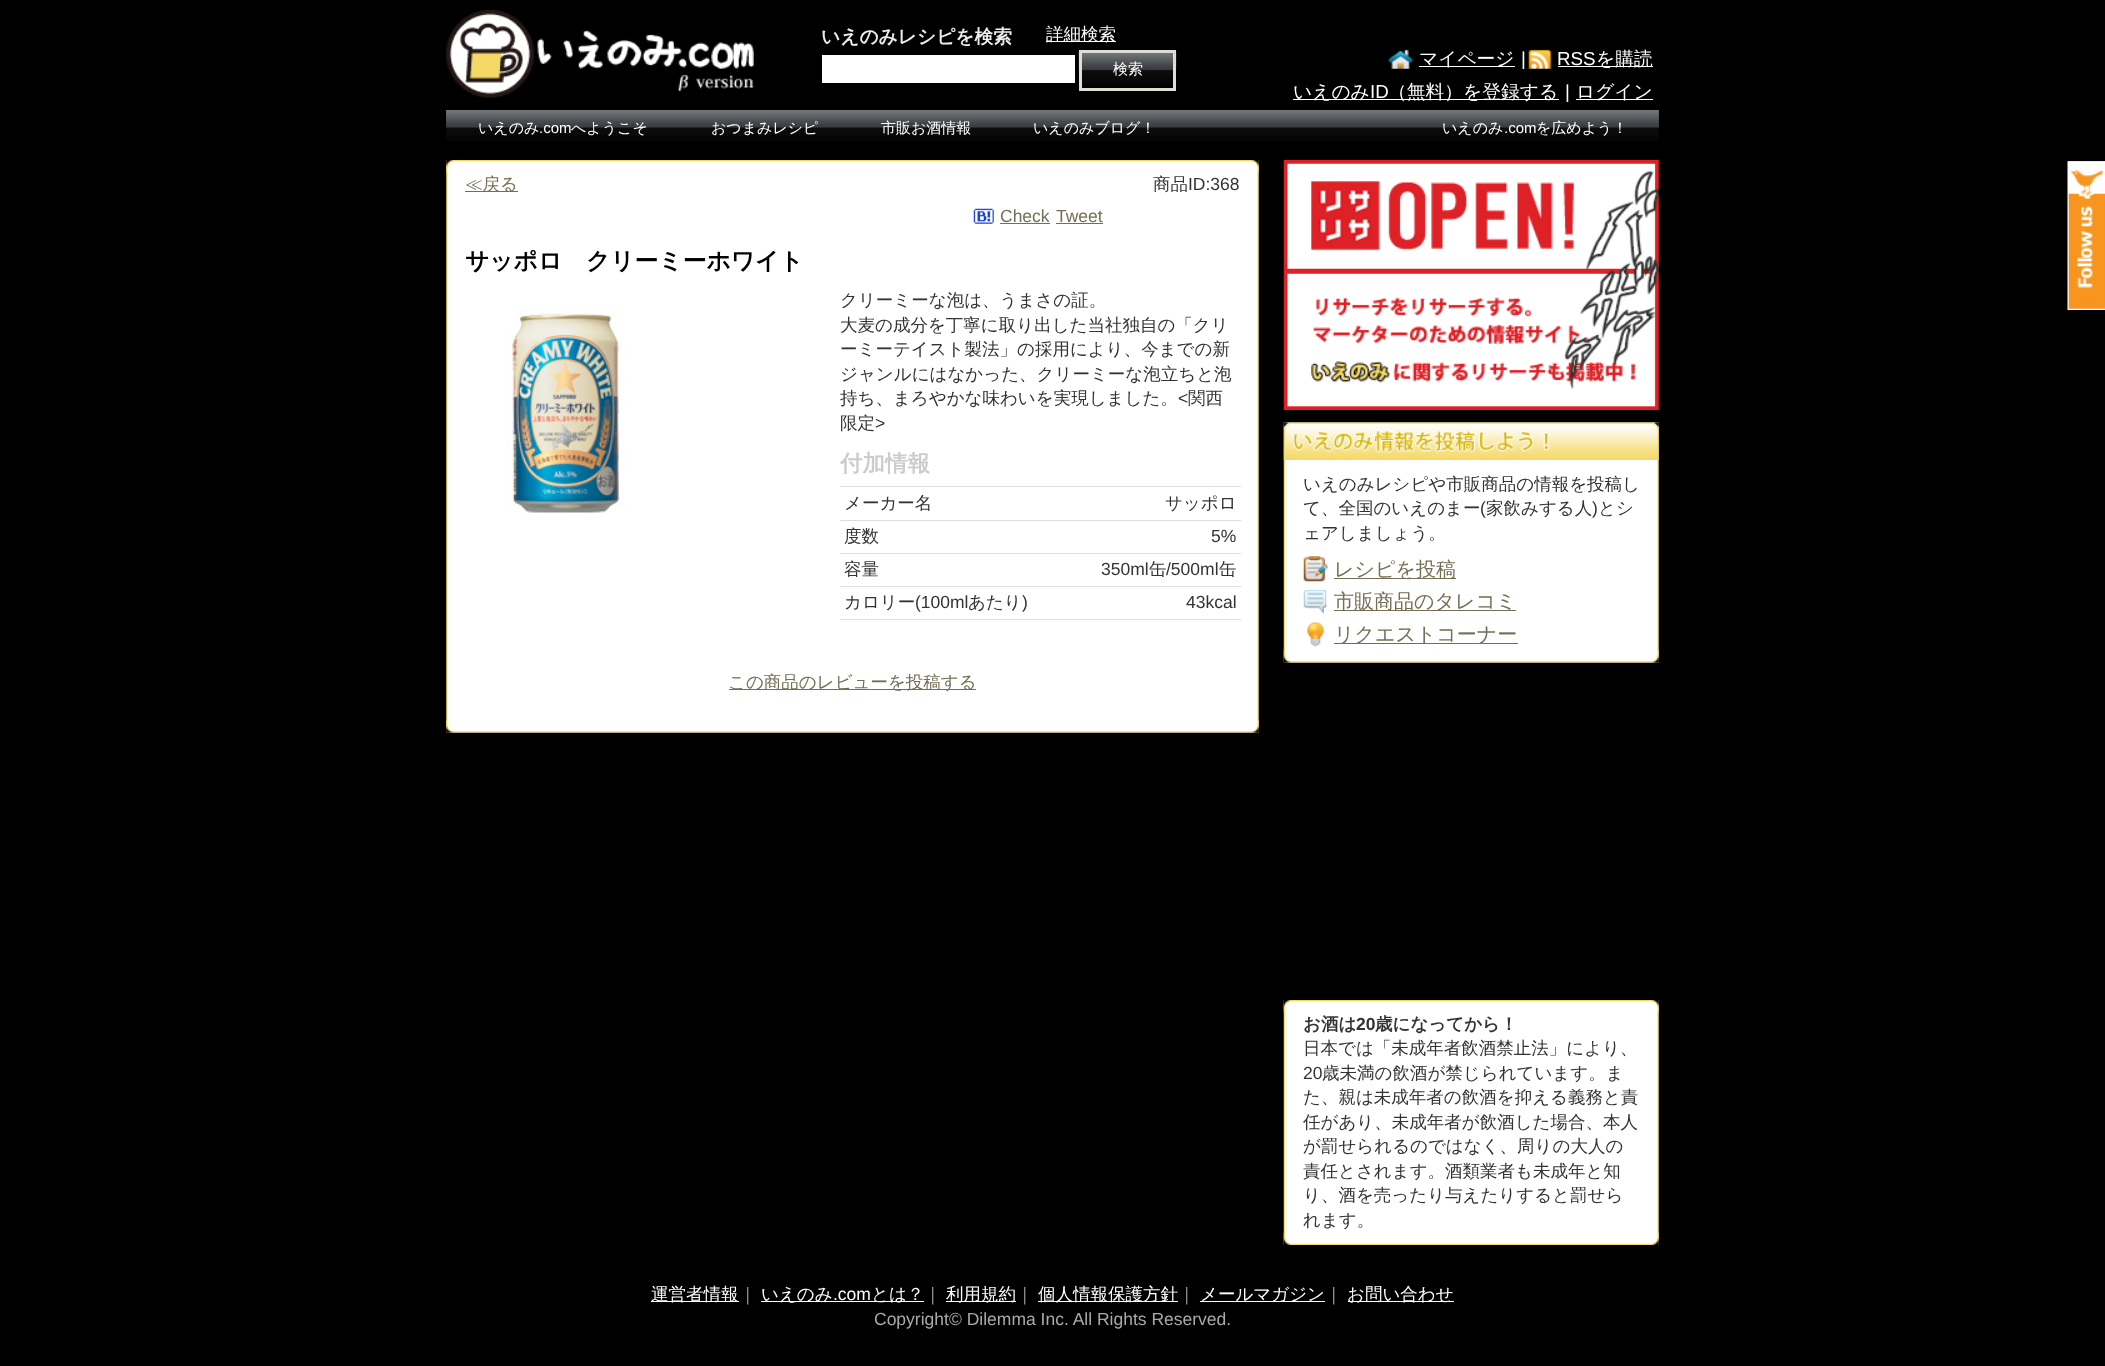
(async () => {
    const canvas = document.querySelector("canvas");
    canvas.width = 2105;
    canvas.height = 1366;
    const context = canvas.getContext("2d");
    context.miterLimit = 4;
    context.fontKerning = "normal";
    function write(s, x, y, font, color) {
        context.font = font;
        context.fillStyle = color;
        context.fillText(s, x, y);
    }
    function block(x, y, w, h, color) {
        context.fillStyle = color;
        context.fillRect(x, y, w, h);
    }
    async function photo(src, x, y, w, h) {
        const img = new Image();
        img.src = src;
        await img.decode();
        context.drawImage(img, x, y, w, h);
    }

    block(0, 0, 2105, 1366, "rgb(0, 0, 0)");
    await photo("media/1.png", 446, 10, 308, 88);
    write("いえのみレシピを検索", 821, 43, "bold 18.75px WenQuanYi Zen Hei", "rgb(238, 238, 238)");
    block(1046, 41, 70, 1, "rgb(255, 255, 255)");
    write("詳細検索", 1046, 40, "500 17.5px WenQuanYi Zen Hei", "rgb(255, 255, 255)");
    block(822, 55, 253, 28, "rgb(255, 255, 255)");
    await photo("media/2.png", 1078, 52, 99, 32);
    context.strokeStyle = "rgb(222, 222, 210)";
    context.lineWidth = 3;
    context.strokeRect(1080.5, 51.5, 94, 38);
    write("検索", 1113, 74, "500 15px WenQuanYi Zen Hei", "rgb(255, 255, 255)");
    await photo("media/3.png", 1388, 49, 25, 20);
    block(1419, 66, 96, 1, "rgb(255, 255, 255)");
    write("マイページ", 1419, 65, "500 18.75px WenQuanYi Zen Hei", "rgb(255, 255, 255)");
    write("|", 1521, 65, "18.75px Liberation Sans", "rgb(255, 255, 255)");
    await photo("media/4.png", 1528, 49, 24, 20);
    write("RSS", 1557, 65, "18.75px Liberation Sans", "rgb(255, 255, 255)");
    block(1558, 66, 95, 1, "rgb(255, 255, 255)");
    write("を購読", 1596, 65, "500 18.75px WenQuanYi Zen Hei", "rgb(255, 255, 255)");
    block(1293, 99, 266, 1, "rgb(255, 255, 255)");
    write("いえのみ", 1293, 98, "500 18.75px WenQuanYi Zen Hei", "rgb(255, 255, 255)");
    write("ID", 1370, 98, "18.75px Liberation Sans", "rgb(255, 255, 255)");
    write("（無料）を登録する", 1388, 98, "500 18.75px WenQuanYi Zen Hei", "rgb(255, 255, 255)");
    write("|", 1565, 98, "18.75px Liberation Sans", "rgb(255, 255, 255)");
    block(1576, 99, 77, 1, "rgb(255, 255, 255)");
    write("ログイン", 1576, 98, "500 18.75px WenQuanYi Zen Hei", "rgb(255, 255, 255)");
    await photo("media/5.png", 446, 110, 1213, 31);
    await photo("media/6.png", 446, 110, 1, 18);
    write("いえのみ", 478, 133, "500 15px WenQuanYi Zen Hei", "rgb(255, 255, 255)");
    write(".com", 539, 133, "15px Liberation Sans", "rgb(255, 255, 255)");
    write("へようこそ", 571, 133, "500 15px WenQuanYi Zen Hei", "rgb(255, 255, 255)");
    write("おつまみレシピ", 711, 133, "500 15px WenQuanYi Zen Hei", "rgb(255, 255, 255)");
    write("市販お酒情報", 881, 133, "500 15px WenQuanYi Zen Hei", "rgb(255, 255, 255)");
    write("いえのみブログ！", 1033, 133, "500 15px WenQuanYi Zen Hei", "rgb(255, 255, 255)");
    await photo("media/6.png", 1658, 110, 1, 18);
    write("いえのみ", 1442, 133, "500 15px WenQuanYi Zen Hei", "rgb(255, 255, 255)");
    write(".com", 1504, 133, "15px Liberation Sans", "rgb(255, 255, 255)");
    write("を広めよう！", 1536, 133, "500 15px WenQuanYi Zen Hei", "rgb(255, 255, 255)");
    await photo("media/7.png", 446, 160, 813, 573);
    await photo("media/8.png", 446, 160, 813, 13);
    block(465, 191, 53, 1, "rgb(116, 110, 84)");
    write("≪戻る", 465, 190, "500 17.5px WenQuanYi Zen Hei", "rgb(116, 110, 84)");
    write("商品", 1153, 190, "500 17.5px WenQuanYi Zen Hei", "rgb(51, 51, 51)");
    write("ID:368", 1188, 190, "17.5px Liberation Sans", "rgb(51, 51, 51)");
    await photo("media/9.png", 973, 208, 21, 16);
    write("Check", 1000, 222, "17.5px Liberation Sans", "rgb(116, 110, 84)");
    block(1000, 223, 50, 1, "rgb(116, 110, 84)");
    write("Tweet", 1056, 222, "17.5px Liberation Sans", "rgb(116, 110, 84)");
    block(1056, 223, 47, 1, "rgb(116, 110, 84)");
    write("サッポロ　クリーミーホワイト", 465, 269, "bold 23.75px WenQuanYi Zen Hei", "rgb(0, 0, 0)");
    await photo("media/10.png", 505, 309, 120, 204);
    write("クリーミーな泡は、うまさの証。", 840, 306, "500 17.5px WenQuanYi Zen Hei", "rgb(51, 51, 51)");
    write("大麦の成分を丁寧に取り出した当社独自の「クリ", 840, 331, "500 17.5px WenQuanYi Zen Hei", "rgb(51, 51, 51)");
    write("ーミーテイスト製法」の採用により、今までの新", 840, 355, "500 17.5px WenQuanYi Zen Hei", "rgb(51, 51, 51)");
    write("ジャンルにはなかった、クリーミーな泡立ちと泡", 840, 380, "500 17.5px WenQuanYi Zen Hei", "rgb(51, 51, 51)");
    write("持ち、まろやかな味わいを実現しました。", 840, 404, "500 17.5px WenQuanYi Zen Hei", "rgb(51, 51, 51)");
    write("<", 1178, 404, "17.5px Liberation Sans", "rgb(51, 51, 51)");
    write("関西", 1188, 404, "500 17.5px WenQuanYi Zen Hei", "rgb(51, 51, 51)");
    write("限定", 840, 429, "500 17.5px WenQuanYi Zen Hei", "rgb(51, 51, 51)");
    write(">", 875, 429, "17.5px Liberation Sans", "rgb(51, 51, 51)");
    write("付加情報", 840, 471, "bold 22.5px WenQuanYi Zen Hei", "rgb(204, 204, 204)");
    write("メーカー名", 844, 509, "500 17.5px WenQuanYi Zen Hei", "rgb(51, 51, 51)");
    block(840, 486, 401, 1, "rgb(221, 221, 221)");
    write("サッポロ", 1165, 509, "500 17.5px WenQuanYi Zen Hei", "rgb(51, 51, 51)");
    write("度数", 844, 542, "500 17.5px WenQuanYi Zen Hei", "rgb(51, 51, 51)");
    block(840, 520, 401, 1, "rgb(221, 221, 221)");
    write("5%", 1211, 542, "17.5px Liberation Sans", "rgb(51, 51, 51)");
    write("容量", 844, 575, "500 17.5px WenQuanYi Zen Hei", "rgb(51, 51, 51)");
    block(840, 553, 401, 1, "rgb(221, 221, 221)");
    write("350ml", 1101, 575, "17.5px Liberation Sans", "rgb(51, 51, 51)");
    write("缶", 1149, 575, "500 17.5px WenQuanYi Zen Hei", "rgb(51, 51, 51)");
    write("/500ml", 1166, 575, "17.5px Liberation Sans", "rgb(51, 51, 51)");
    write("缶", 1219, 575, "500 17.5px WenQuanYi Zen Hei", "rgb(51, 51, 51)");
    write("カロリー", 844, 608, "500 17.5px WenQuanYi Zen Hei", "rgb(51, 51, 51)");
    write("(100ml", 915, 608, "17.5px Liberation Sans", "rgb(51, 51, 51)");
    write("あたり", 968, 608, "500 17.5px WenQuanYi Zen Hei", "rgb(51, 51, 51)");
    write(")", 1022, 608, "17.5px Liberation Sans", "rgb(51, 51, 51)");
    block(840, 586, 401, 1, "rgb(221, 221, 221)");
    block(840, 619, 401, 1, "rgb(221, 221, 221)");
    write("43kcal", 1186, 608, "17.5px Liberation Sans", "rgb(51, 51, 51)");
    block(729, 689, 247, 1, "rgb(116, 110, 84)");
    write("この商品のレビューを投稿する", 728, 688, "500 17.5px WenQuanYi Zen Hei", "rgb(116, 110, 84)");
    await photo("media/11.png", 446, 720, 813, 13);
    await photo("media/12.png", 1283, 160, 376, 250);
    await photo("media/13.png", 1283, 422, 376, 241);
    await photo("media/14.png", 1283, 422, 376, 38);
    write("いえのみレシピや市販商品の情報を投稿し", 1303, 490, "500 17.5px WenQuanYi Zen Hei", "rgb(51, 51, 51)");
    write("て、全国のいえのまー", 1303, 514, "500 17.5px WenQuanYi Zen Hei", "rgb(51, 51, 51)");
    write("(", 1480, 514, "17.5px Liberation Sans", "rgb(51, 51, 51)");
    write("家飲みする人", 1486, 514, "500 17.5px WenQuanYi Zen Hei", "rgb(51, 51, 51)");
    write(")", 1592, 514, "17.5px Liberation Sans", "rgb(51, 51, 51)");
    write("とシ", 1598, 514, "500 17.5px WenQuanYi Zen Hei", "rgb(51, 51, 51)");
    write("ェアしましょう。", 1303, 539, "500 17.5px WenQuanYi Zen Hei", "rgb(51, 51, 51)");
    await photo("media/15.png", 1303, 556, 25, 26);
    block(1334, 578, 122, 1, "rgb(116, 110, 84)");
    write("レシピを投稿", 1334, 576, "500 20px WenQuanYi Zen Hei", "rgb(116, 110, 84)");
    await photo("media/16.png", 1303, 589, 24, 25);
    block(1334, 610, 182, 1, "rgb(116, 110, 84)");
    write("市販商品のタレコミ", 1334, 608, "500 20px WenQuanYi Zen Hei", "rgb(116, 110, 84)");
    await photo("media/17.png", 1307, 622, 17, 25);
    block(1334, 643, 184, 1, "rgb(116, 110, 84)");
    write("リクエストコーナー", 1334, 641, "500 20px WenQuanYi Zen Hei", "rgb(116, 110, 84)");
    await photo("media/18.png", 1283, 650, 376, 13);
    await photo("media/19.png", 1283, 1000, 376, 245);
    await photo("media/20.png", 1283, 1000, 376, 13);
    write("お酒は", 1303, 1030, "bold 17.5px WenQuanYi Zen Hei", "rgb(51, 51, 51)");
    write("20", 1356, 1030, "bold 17.5px Liberation Sans", "rgb(51, 51, 51)");
    write("歳になってから！", 1375, 1030, "bold 17.5px WenQuanYi Zen Hei", "rgb(51, 51, 51)");
    write("日本では「未成年者飲酒禁止法」により、", 1303, 1054, "500 17.5px WenQuanYi Zen Hei", "rgb(51, 51, 51)");
    write("20", 1303, 1079, "17.5px Liberation Sans", "rgb(51, 51, 51)");
    write("歳未満の飲酒が禁じられています。ま", 1322, 1079, "500 17.5px WenQuanYi Zen Hei", "rgb(51, 51, 51)");
    write("た、親は未成年者の飲酒を抑える義務と責", 1303, 1103, "500 17.5px WenQuanYi Zen Hei", "rgb(51, 51, 51)");
    write("任があり、未成年者が飲酒した場合、本人", 1303, 1128, "500 17.5px WenQuanYi Zen Hei", "rgb(51, 51, 51)");
    write("が罰せられるのではなく、周りの大人の", 1303, 1152, "500 17.5px WenQuanYi Zen Hei", "rgb(51, 51, 51)");
    write("責任とされます。酒類業者も未成年と知", 1303, 1177, "500 17.5px WenQuanYi Zen Hei", "rgb(51, 51, 51)");
    write("り、酒を売ったり与えたりすると罰せら", 1303, 1201, "500 17.5px WenQuanYi Zen Hei", "rgb(51, 51, 51)");
    write("れます。", 1303, 1226, "500 17.5px WenQuanYi Zen Hei", "rgb(51, 51, 51)");
    await photo("media/21.png", 1283, 1232, 376, 13);
    block(651, 1301, 88, 1, "rgb(255, 255, 255)");
    write("運営者情報", 651, 1300, "500 17.5px WenQuanYi Zen Hei", "rgb(255, 255, 255)");
    write("｜", 739, 1300, "500 17.5px WenQuanYi Zen Hei", "rgb(170, 170, 170)");
    block(761, 1301, 163, 1, "rgb(255, 255, 255)");
    write("いえのみ", 761, 1300, "500 17.5px WenQuanYi Zen Hei", "rgb(255, 255, 255)");
    write(".com", 833, 1300, "17.5px Liberation Sans", "rgb(255, 255, 255)");
    write("とは？", 871, 1300, "500 17.5px WenQuanYi Zen Hei", "rgb(255, 255, 255)");
    write("｜", 924, 1300, "500 17.5px WenQuanYi Zen Hei", "rgb(170, 170, 170)");
    block(946, 1301, 70, 1, "rgb(255, 255, 255)");
    write("利用規約", 946, 1300, "500 17.5px WenQuanYi Zen Hei", "rgb(255, 255, 255)");
    write("｜", 1016, 1300, "500 17.5px WenQuanYi Zen Hei", "rgb(170, 170, 170)");
    block(1038, 1301, 140, 1, "rgb(255, 255, 255)");
    write("個人情報保護方針", 1038, 1300, "500 17.5px WenQuanYi Zen Hei", "rgb(255, 255, 255)");
    write("｜", 1178, 1300, "500 17.5px WenQuanYi Zen Hei", "rgb(170, 170, 170)");
    block(1200, 1301, 125, 1, "rgb(255, 255, 255)");
    write("メールマガジン", 1200, 1300, "500 17.5px WenQuanYi Zen Hei", "rgb(255, 255, 255)");
    write("｜", 1325, 1300, "500 17.5px WenQuanYi Zen Hei", "rgb(170, 170, 170)");
    block(1348, 1301, 106, 1, "rgb(255, 255, 255)");
    write("お問い合わせ", 1347, 1300, "500 17.5px WenQuanYi Zen Hei", "rgb(255, 255, 255)");
    write("Copyright© Dilemma Inc. All Rights Reserved.", 874, 1325, "17.5px Liberation Sans", "rgb(170, 170, 170)");
    block(2068, 161, 37, 148, "rgb(247, 148, 29)");
    await photo("media/22.png", 2067, 161, 38, 149);
})();
